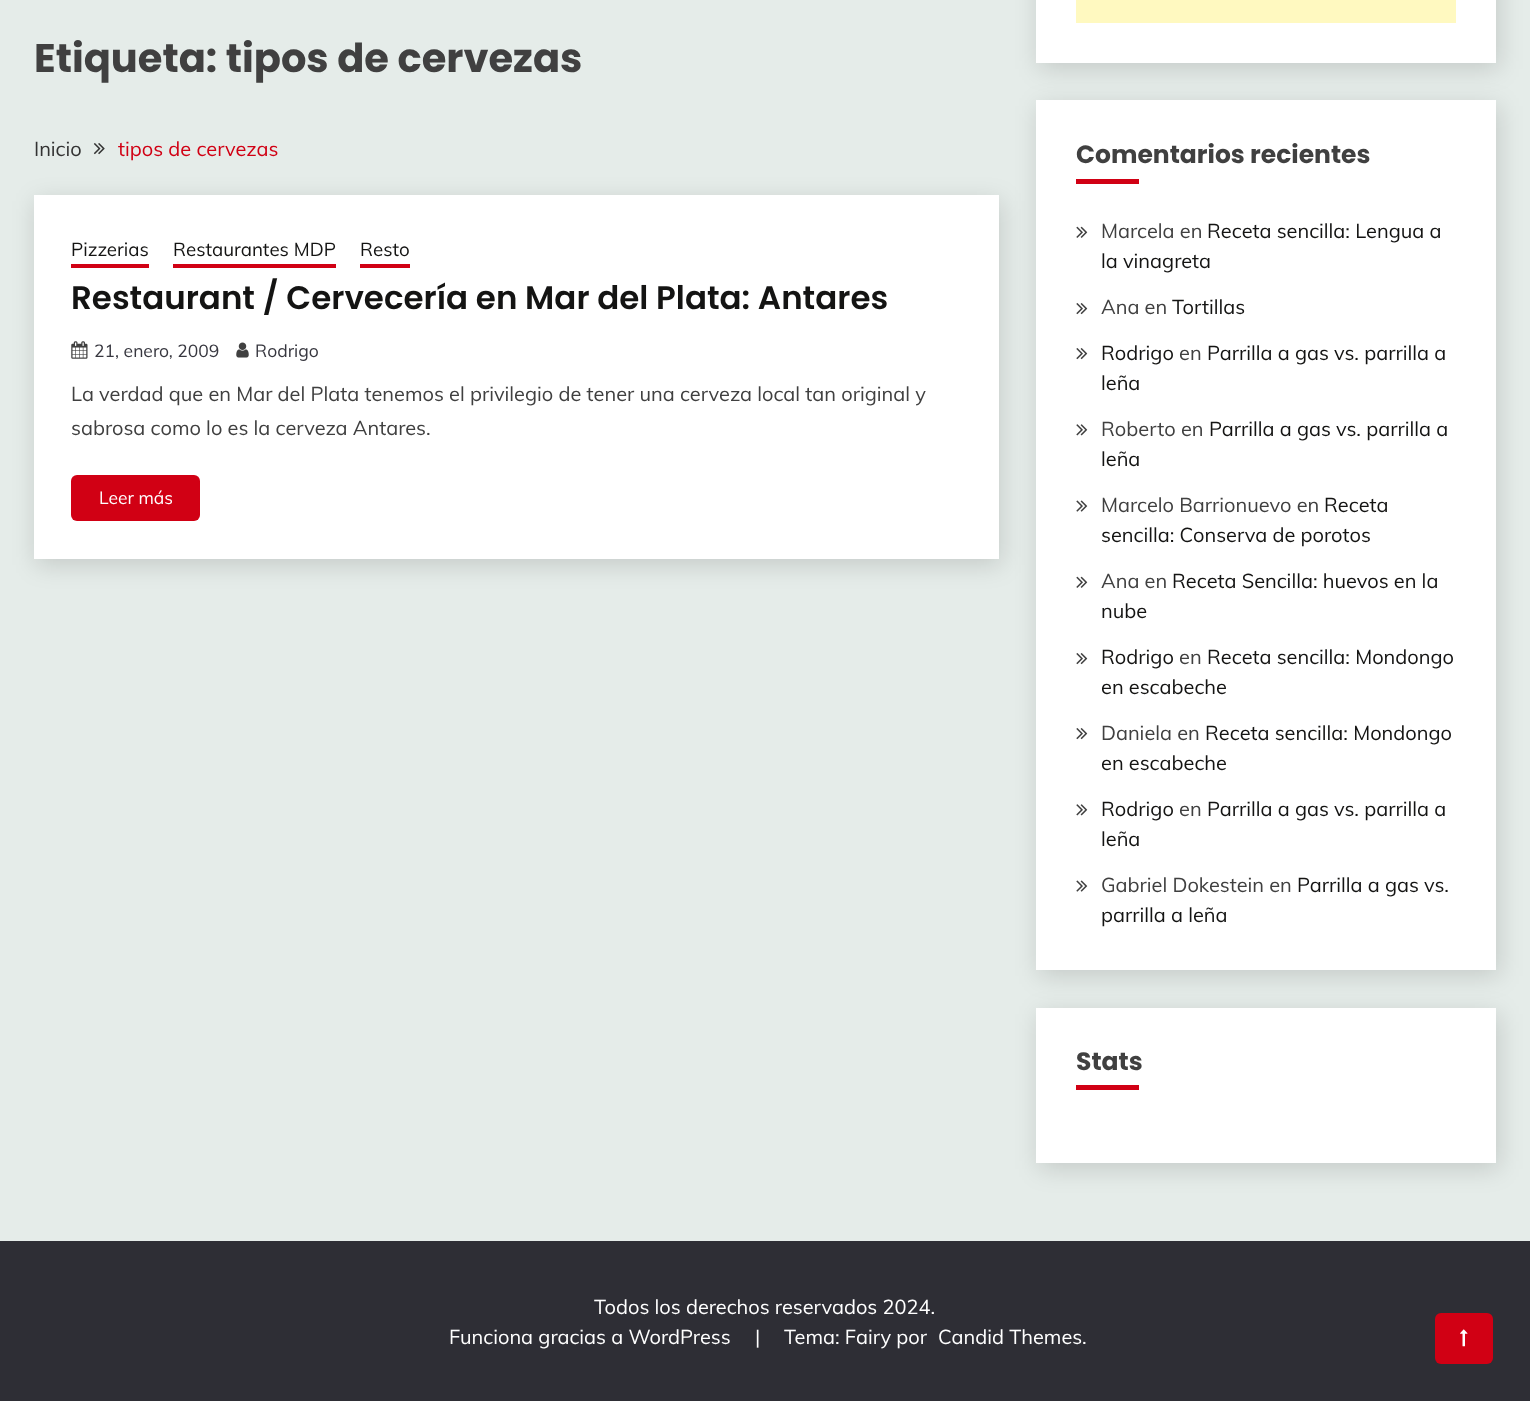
(async () => {
    const canvas = document.querySelector("canvas");
    canvas.width = 1530;
    canvas.height = 1401;
    const context = canvas.getContext("2d");
    context.miterLimit = 4;
    context.fontKerning = "normal";
    function write(s, x, y, font, color) {
        context.font = font;
        context.fillStyle = color;
        context.fillText(s, x, y);
    }
    function block(x, y, w, h, color) {
        context.fillStyle = color;
        context.fillRect(x, y, w, h);
    }
    function card(x, y, w, h, r, color) {
        context.fillStyle = color;
        context.beginPath();
        context.roundRect(x, y, w, h, r);
        context.fill();
    }
    async function photo(src, x, y, w, h) {
        const img = new Image();
        img.src = src;
        await img.decode();
        context.drawImage(img, x, y, w, h);
    }

    block(0, 0, 1530, 1401, "rgb(229, 236, 233)");
    write("Etiqueta: tipos de cervezas", 34, 72, "bold 40px Poppins", "rgb(64, 64, 64)");
    write("Inicio", 34, 156, "20px Muli", "rgb(51, 51, 51)");
    await photo("media/1.png", 93, 143, 12, 12);
    write("tipos de cervezas", 118, 156, "20px Muli", "rgb(209, 0, 20)");
    context.fillStyle = "rgba(0, 0, 0, 0.14)";
    context.filter = "blur(12.5px)";
    context.beginPath();
    context.rect(36, 201, 965, 364);
    context.fill();
    context.filter = "none";
    block(34, 195, 965, 364, "rgb(255, 255, 255)");
    write("Pizzerias", 71, 256, "18.75px Muli", "rgb(20, 20, 19)");
    block(71, 264, 78, 4, "rgb(209, 0, 20)");
    write("Restaurantes MDP", 173, 256, "18.75px Muli", "rgb(20, 20, 19)");
    block(173, 264, 163, 4, "rgb(209, 0, 20)");
    write("Resto", 360, 256, "18.75px Muli", "rgb(20, 20, 19)");
    block(360, 264, 50, 4, "rgb(209, 0, 20)");
    write("Restaurant / Cervecería en Mar del Plata: Antares", 71, 309, "600 32.5px Poppins", "rgb(20, 20, 19)");
    await photo("media/2.png", 71, 341, 17, 18);
    write("21, enero, 2009", 94, 357, "17.5px Muli", "rgb(55, 55, 63)");
    await photo("media/3.png", 236, 342, 13, 16);
    write("Rodrigo", 255, 357, "17.5px Muli", "rgb(55, 55, 63)");
    write("La verdad que en Mar del Plata tenemos el privilegio de tener una cerveza local tan original y", 71, 401, "20px Muli", "rgb(64, 64, 64)");
    write("sabrosa como lo es la cerveza Antares.", 71, 435, "20px Muli", "rgb(64, 64, 64)");
    card(71, 475, 129, 46, 6, "rgb(209, 0, 20)");
    write("Leer más", 99, 504, "17.5px Muli", "rgb(255, 255, 255)");
    context.fillStyle = "rgba(0, 0, 0, 0.14)";
    context.filter = "blur(12.5px)";
    context.beginPath();
    context.rect(1039, -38, 460, 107);
    context.fill();
    context.filter = "none";
    block(1036, 0, 460, 63, "rgb(255, 255, 255)");
    block(1076, 0, 380, 23, "rgb(255, 249, 192)");
    context.fillStyle = "rgba(0, 0, 0, 0.14)";
    context.filter = "blur(12.5px)";
    context.beginPath();
    context.rect(1039, 106, 460, 870);
    context.fill();
    context.filter = "none";
    block(1036, 100, 460, 870, "rgb(255, 255, 255)");
    write("Comentarios recientes", 1076, 163, "bold 25px Poppins", "rgb(64, 64, 64)");
    block(1076, 179, 63, 5, "rgb(209, 0, 20)");
    await photo("media/4.png", 1076, 226, 12, 12);
    write("Marcela en", 1101, 238, "20px Muli", "rgb(64, 64, 64)");
    write("Receta sencilla: Lengua a", 1207, 238, "20px Muli", "rgb(20, 20, 19)");
    write("la vinagreta", 1101, 268, "20px Muli", "rgb(20, 20, 19)");
    await photo("media/5.png", 1076, 303, 12, 12);
    write("Ana en", 1101, 314, "20px Muli", "rgb(64, 64, 64)");
    write("Tortillas", 1172, 314, "20px Muli", "rgb(20, 20, 19)");
    await photo("media/5.png", 1076, 348, 12, 12);
    write("Rodrigo", 1101, 360, "20px Muli", "rgb(20, 20, 19)");
    write("en", 1179, 360, "20px Muli", "rgb(64, 64, 64)");
    write("Parrilla a gas vs. parrilla a", 1207, 360, "20px Muli", "rgb(20, 20, 19)");
    write("leña", 1101, 390, "20px Muli", "rgb(20, 20, 19)");
    await photo("media/6.png", 1076, 424, 12, 12);
    write("Roberto en", 1101, 436, "20px Muli", "rgb(64, 64, 64)");
    write("Parrilla a gas vs. parrilla a", 1209, 436, "20px Muli", "rgb(20, 20, 19)");
    write("leña", 1101, 466, "20px Muli", "rgb(20, 20, 19)");
    await photo("media/7.png", 1076, 500, 12, 12);
    write("Marcelo Barrionuevo en", 1101, 512, "20px Muli", "rgb(64, 64, 64)");
    write("Receta", 1324, 512, "20px Muli", "rgb(20, 20, 19)");
    write("sencilla: Conserva de porotos", 1101, 542, "20px Muli", "rgb(20, 20, 19)");
    await photo("media/4.png", 1076, 576, 12, 12);
    write("Ana en", 1101, 588, "20px Muli", "rgb(64, 64, 64)");
    write("Receta Sencilla: huevos en la", 1172, 588, "20px Muli", "rgb(20, 20, 19)");
    write("nube", 1101, 618, "20px Muli", "rgb(20, 20, 19)");
    await photo("media/5.png", 1076, 653, 12, 12);
    write("Rodrigo", 1101, 664, "20px Muli", "rgb(20, 20, 19)");
    write("en", 1179, 664, "20px Muli", "rgb(64, 64, 64)");
    write("Receta sencilla: Mondongo", 1207, 664, "20px Muli", "rgb(20, 20, 19)");
    write("en escabeche", 1101, 694, "20px Muli", "rgb(20, 20, 19)");
    await photo("media/5.png", 1076, 728, 12, 12);
    write("Daniela en", 1101, 740, "20px Muli", "rgb(64, 64, 64)");
    write("Receta sencilla: Mondongo", 1205, 740, "20px Muli", "rgb(20, 20, 19)");
    write("en escabeche", 1101, 770, "20px Muli", "rgb(20, 20, 19)");
    await photo("media/6.png", 1076, 804, 12, 12);
    write("Rodrigo", 1101, 816, "20px Muli", "rgb(20, 20, 19)");
    write("en", 1179, 816, "20px Muli", "rgb(64, 64, 64)");
    write("Parrilla a gas vs. parrilla a", 1207, 816, "20px Muli", "rgb(20, 20, 19)");
    write("leña", 1101, 846, "20px Muli", "rgb(20, 20, 19)");
    await photo("media/7.png", 1076, 880, 12, 12);
    write("Gabriel Dokestein en", 1101, 892, "20px Muli", "rgb(64, 64, 64)");
    write("Parrilla a gas vs.", 1297, 892, "20px Muli", "rgb(20, 20, 19)");
    write("parrilla a leña", 1101, 922, "20px Muli", "rgb(20, 20, 19)");
    context.fillStyle = "rgba(0, 0, 0, 0.14)";
    context.filter = "blur(12.5px)";
    context.beginPath();
    context.rect(1039, 1014, 460, 155);
    context.fill();
    context.filter = "none";
    block(1036, 1008, 460, 155, "rgb(255, 255, 255)");
    write("Stats", 1076, 1070, "bold 25px Poppins", "rgb(64, 64, 64)");
    block(1076, 1085, 63, 5, "rgb(209, 0, 20)");
    block(0, 1241, 1530, 160, "rgb(46, 46, 53)");
    write("Todos los derechos reservados 2024.", 594, 1314, "20px Muli", "rgb(255, 255, 255)");
    write("Funciona gracias a WordPress", 449, 1344, "20px Muli", "rgb(255, 255, 255)");
    write("|", 755, 1344, "20px Muli", "rgb(255, 255, 255)");
    write("Tema: Fairy por", 784, 1344, "20px Muli", "rgb(255, 255, 255)");
    write("Candid Themes.", 938, 1344, "20px Muli", "rgb(255, 255, 255)");
    card(1435, 1313, 58, 51, 6, "rgb(209, 0, 20)");
    await photo("media/8.png", 1460, 1329, 8, 18);
})();
